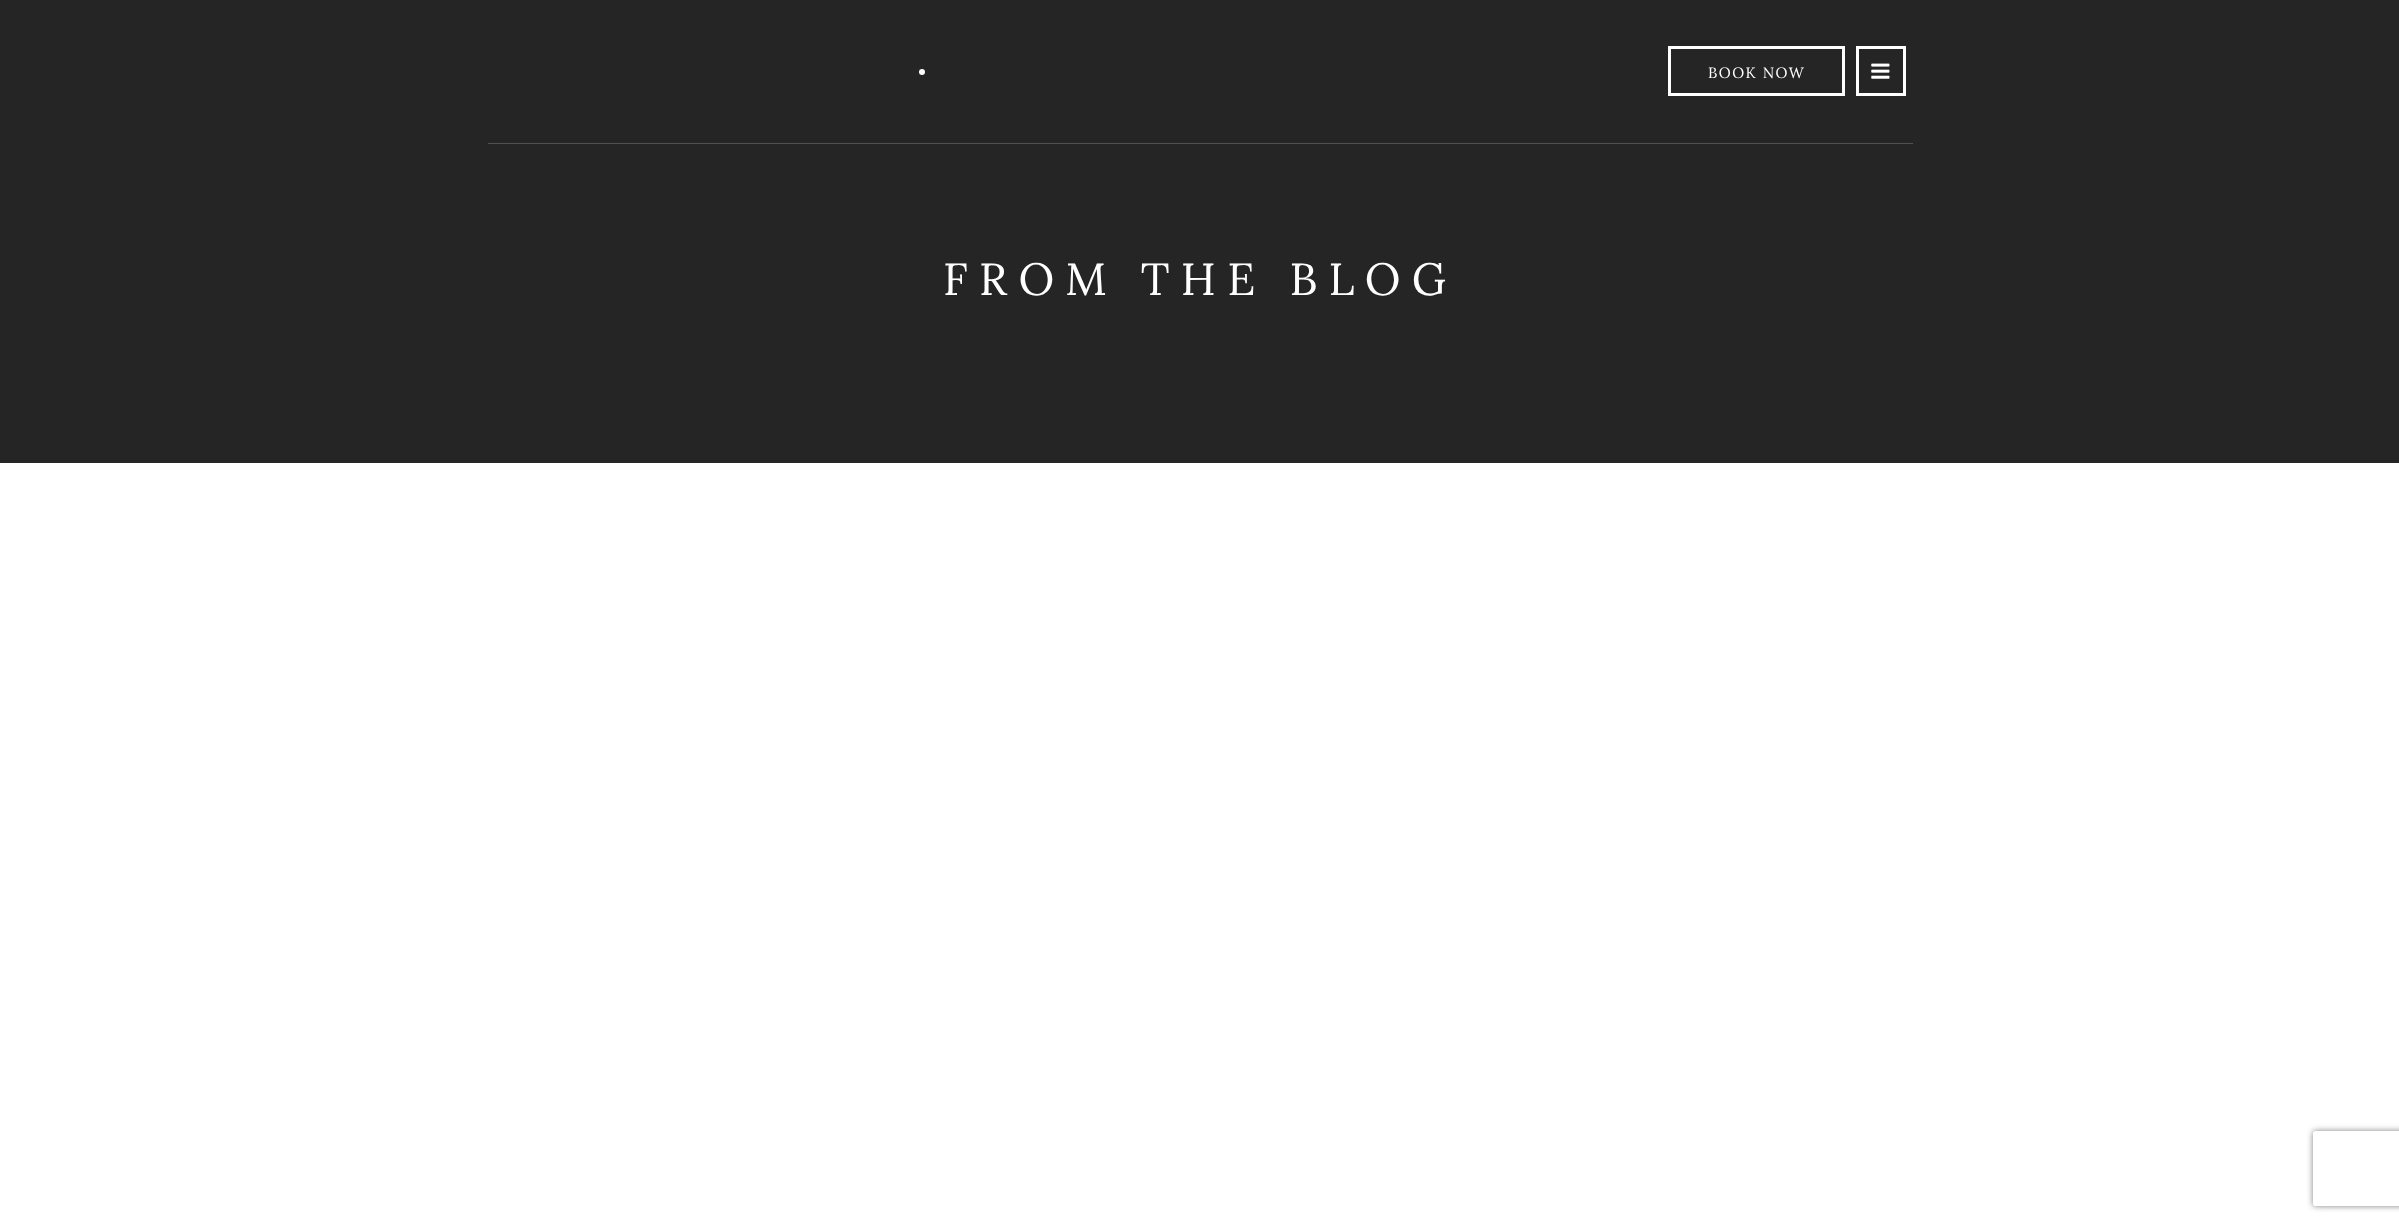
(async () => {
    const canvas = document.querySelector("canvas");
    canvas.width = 2399;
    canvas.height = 1223;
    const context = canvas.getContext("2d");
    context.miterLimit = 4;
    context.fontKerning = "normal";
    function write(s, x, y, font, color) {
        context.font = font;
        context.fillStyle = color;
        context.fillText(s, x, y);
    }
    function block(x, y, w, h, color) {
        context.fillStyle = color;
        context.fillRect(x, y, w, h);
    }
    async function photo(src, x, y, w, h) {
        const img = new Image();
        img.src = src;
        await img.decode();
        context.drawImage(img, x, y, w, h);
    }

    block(0, 0, 2399, 1223, "rgb(255, 255, 255)");
    block(0, 0, 2399, 463, "rgb(37, 37, 37)");
    block(488, 143, 1425, 1, "rgb(81, 81, 81)");
    context.fillStyle = "rgb(255, 255, 255)";
    context.beginPath();
    context.arc(922, 72, 3, 0, Math.PI * 2);
    context.fill();
    context.strokeStyle = "rgb(255, 255, 255)";
    context.lineWidth = 3;
    context.strokeRect(1669.5, 47.5, 174, 47);
    context.letterSpacing = "1.5px";
    write("BOOK NOW", 1708, 78, "15px Lora", "rgb(255, 255, 255)");
    context.strokeRect(1857.5, 47.5, 47, 47);
    await photo("media/1.png", 1871, 63, 19, 16);
    context.letterSpacing = "11.25px";
    write("FROM THE BLOG", 943, 295, "45px Lora", "rgb(255, 255, 255)");
    context.save();
    context.beginPath();
    context.moveTo(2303, 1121);
    context.lineTo(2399, 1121);
    context.lineTo(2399, 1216);
    context.lineTo(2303, 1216);
    context.closePath();
    context.moveTo(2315.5, 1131);
    context.lineTo(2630.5, 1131);
    context.bezierCurveTo(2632, 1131, 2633, 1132, 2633, 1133.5);
    context.lineTo(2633, 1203.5);
    context.bezierCurveTo(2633, 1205, 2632, 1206, 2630.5, 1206);
    context.lineTo(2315.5, 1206);
    context.bezierCurveTo(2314, 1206, 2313, 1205, 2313, 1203.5);
    context.lineTo(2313, 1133.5);
    context.bezierCurveTo(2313, 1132, 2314, 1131, 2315.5, 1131);
    context.closePath();
    context.clip("evenodd");
    context.fillStyle = "rgb(128, 128, 128)";
    context.filter = "blur(3px)";
    context.beginPath();
    context.roundRect(2313, 1131, 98, 75, 2.5);
    context.fill();
    context.filter = "none";
    context.restore();
})();
